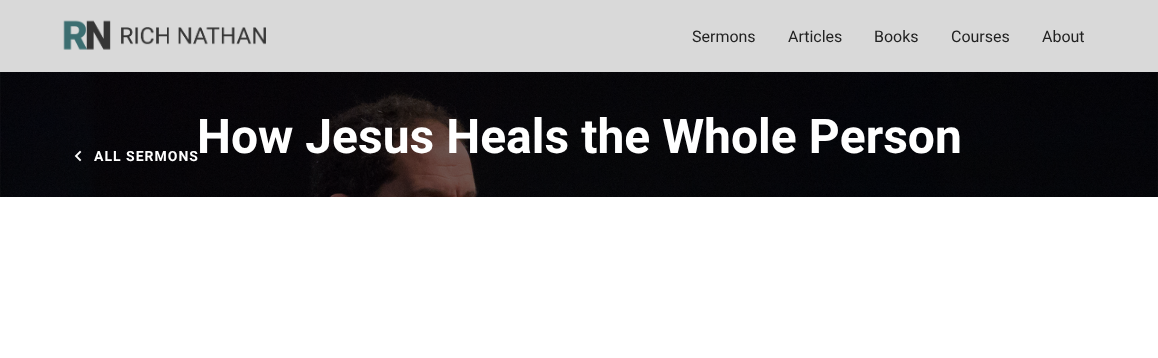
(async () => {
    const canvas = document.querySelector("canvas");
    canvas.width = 1158;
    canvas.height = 358;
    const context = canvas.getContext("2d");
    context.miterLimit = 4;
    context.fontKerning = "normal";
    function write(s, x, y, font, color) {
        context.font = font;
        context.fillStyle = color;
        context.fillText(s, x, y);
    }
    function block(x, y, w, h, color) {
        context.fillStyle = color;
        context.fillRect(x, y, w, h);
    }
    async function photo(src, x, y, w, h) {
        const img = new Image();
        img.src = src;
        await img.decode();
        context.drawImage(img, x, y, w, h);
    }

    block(0, 0, 1158, 358, "rgb(255, 255, 255)");
    block(0, 0, 1158, 72, "rgb(217, 217, 217)");
    await photo("media/1.png", 63, 20, 203, 30);
    write("Sermons", 692, 42, "16px Roboto", "rgb(34, 34, 34)");
    write("Articles", 788, 42, "16px Roboto", "rgb(34, 34, 34)");
    write("Books", 874, 42, "16px Roboto", "rgb(34, 34, 34)");
    write("Courses", 951, 42, "16px Roboto", "rgb(34, 34, 34)");
    write("About", 1042, 42, "16px Roboto", "rgb(34, 34, 34)");
    await photo("media/2.png", 0, 72, 1158, 125);
    write("How Jesus Heals the Whole Person", 197, 153, "bold 48px Roboto", "rgb(255, 255, 255)");
    await photo("media/3.png", 74, 150, 8, 12);
    context.letterSpacing = "1px";
    write("ALL SERMONS", 94, 161, "bold 14px Roboto", "rgb(255, 255, 255)");
})();
